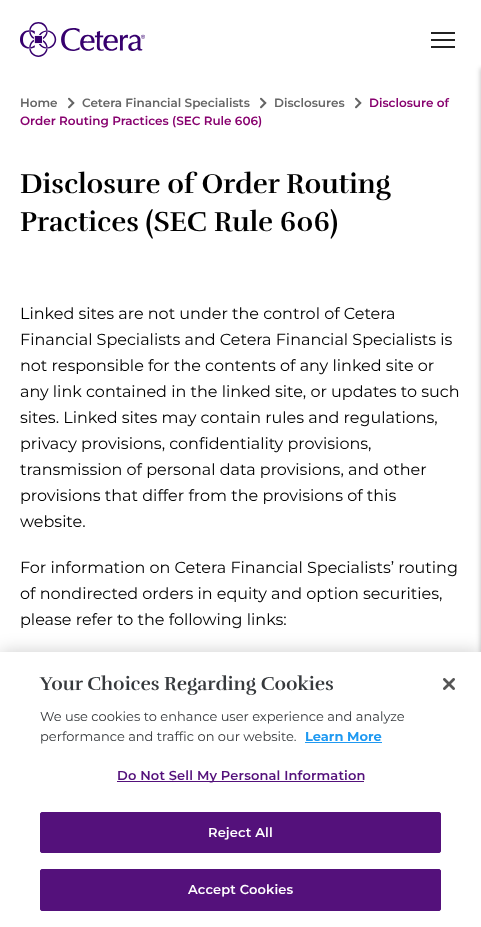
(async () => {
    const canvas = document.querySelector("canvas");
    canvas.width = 481;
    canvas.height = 927;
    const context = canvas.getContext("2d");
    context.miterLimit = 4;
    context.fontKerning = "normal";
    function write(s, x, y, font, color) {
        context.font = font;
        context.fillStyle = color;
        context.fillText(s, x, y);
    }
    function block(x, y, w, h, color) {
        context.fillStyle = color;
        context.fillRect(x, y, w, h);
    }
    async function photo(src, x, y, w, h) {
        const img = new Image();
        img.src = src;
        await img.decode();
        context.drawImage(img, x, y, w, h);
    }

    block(0, 0, 481, 927, "rgb(255, 255, 255)");
    await photo("media/1.png", 20, 22, 125, 35);
    block(431, 32, 24, 2, "rgb(34, 34, 34)");
    block(431, 39, 24, 2, "rgb(34, 34, 34)");
    block(431, 46, 24, 2, "rgb(34, 34, 34)");
    context.fillStyle = "rgba(0, 0, 0, 0.2)";
    context.filter = "blur(2px)";
    context.beginPath();
    context.rect(480, 68, 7, 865);
    context.fill();
    context.filter = "none";
    write("Home", 20, 107, "600 12px Montserrat", "rgb(101, 101, 101)");
    await photo("media/2.png", 68, 97, 7, 12);
    write("Cetera Financial Specialists", 82, 107, "600 12px Montserrat", "rgb(101, 101, 101)");
    await photo("media/2.png", 260, 97, 7, 12);
    write("Disclosures", 274, 107, "600 12px Montserrat", "rgb(101, 101, 101)");
    await photo("media/2.png", 355, 97, 7, 12);
    write("Disclosure of", 369, 107, "600 12px Montserrat", "rgb(135, 0, 110)");
    write("Order Routing Practices (SEC Rule 606)", 20, 125, "600 12px Montserrat", "rgb(135, 0, 110)");
    write("Disclosure of Order Routing", 20, 193, "bold 28px Rufina", "rgb(0, 0, 0)");
    write("Practices (SEC Rule 606)", 20, 231, "bold 28px Rufina", "rgb(0, 0, 0)");
    write("Linked sites are not under the control of Cetera", 20, 319, "16px Montserrat", "rgb(0, 0, 0)");
    write("Financial Specialists and Cetera Financial Specialists is", 20, 345, "16px Montserrat", "rgb(0, 0, 0)");
    write("not responsible for the contents of any linked site or", 20, 371, "16px Montserrat", "rgb(0, 0, 0)");
    write("any link contained in the linked site, or updates to such", 20, 397, "16px Montserrat", "rgb(0, 0, 0)");
    write("sites. Linked sites may contain rules and regulations,", 20, 423, "16px Montserrat", "rgb(0, 0, 0)");
    write("privacy provisions, confidentiality provisions,", 20, 449, "16px Montserrat", "rgb(0, 0, 0)");
    write("transmission of personal data provisions, and other", 20, 475, "16px Montserrat", "rgb(0, 0, 0)");
    write("provisions that differ from the provisions of this", 20, 501, "16px Montserrat", "rgb(0, 0, 0)");
    write("website.", 20, 527, "16px Montserrat", "rgb(0, 0, 0)");
    write("For information on Cetera Financial Specialists’ routing", 20, 573, "16px Montserrat", "rgb(0, 0, 0)");
    write("of nondirected orders in equity and option securities,", 20, 599, "16px Montserrat", "rgb(0, 0, 0)");
    write("please refer to the following links:", 20, 625, "16px Montserrat", "rgb(0, 0, 0)");
    context.fillStyle = "rgba(0, 0, 0, 0.2)";
    context.filter = "blur(9px)";
    context.beginPath();
    context.rect(0, 652, 481, 275);
    context.fill();
    context.filter = "none";
    block(0, 652, 481, 275, "rgb(255, 255, 255)");
    write("Your Choices Regarding Cookies", 40, 690, "bold 19.25px Rufina", "rgb(54, 57, 60)");
    write("We use cookies to enhance user experience and analyze", 40, 721, "13px Montserrat", "rgb(54, 57, 60)");
    write("performance and traffic on our website.", 40, 741, "13px Montserrat", "rgb(54, 57, 60)");
    write("Learn More", 305, 741, "bold 13px Montserrat", "rgb(31, 153, 241)");
    block(305, 742, 77, 1, "rgb(31, 153, 241)");
    block(117, 781, 247, 1, "rgb(84, 17, 123)");
    context.letterSpacing = "0.15px";
    write("Do Not Sell My Personal Information", 117, 780, "600 13px Montserrat", "rgb(84, 17, 123)");
    context.beginPath();
    context.roundRect(40.5, 812.5, 400, 40, 1.5);
    context.fill();
    context.strokeStyle = "rgb(84, 17, 123)";
    context.stroke();
    write("Reject All", 208, 837, "600 13px Montserrat", "rgb(255, 255, 255)");
    context.fillStyle = "rgb(84, 17, 123)";
    context.beginPath();
    context.roundRect(40.5, 869.5, 400, 41, 1.5);
    context.fill();
    context.stroke();
    write("Accept Cookies", 188, 894, "600 13px Montserrat", "rgb(255, 255, 255)");
    await photo("media/3.png", 443, 678, 12, 12);
})();
